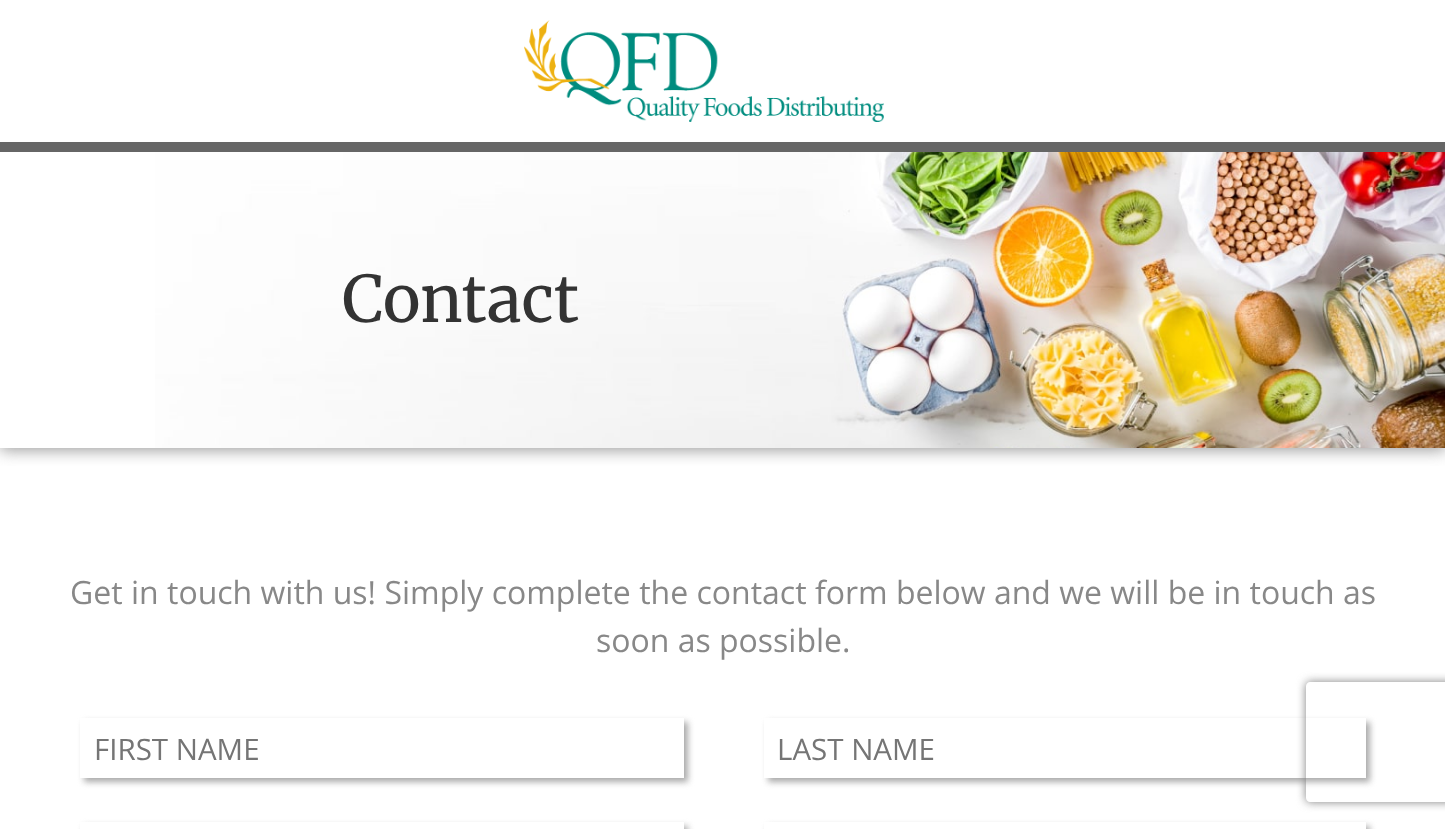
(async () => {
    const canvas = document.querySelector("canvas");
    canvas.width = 1445;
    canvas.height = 829;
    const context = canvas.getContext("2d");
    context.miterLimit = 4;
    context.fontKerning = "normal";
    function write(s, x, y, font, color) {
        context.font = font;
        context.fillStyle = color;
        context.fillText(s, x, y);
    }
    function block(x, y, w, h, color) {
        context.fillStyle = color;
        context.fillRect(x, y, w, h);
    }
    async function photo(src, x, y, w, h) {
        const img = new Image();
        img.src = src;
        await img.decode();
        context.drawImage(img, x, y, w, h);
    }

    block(0, 0, 1445, 829, "rgb(255, 255, 255)");
    await photo("media/1.png", 155, 152, 1290, 296);
    context.save();
    context.beginPath();
    context.rect(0, 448, 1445, 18);
    context.clip();
    context.fillStyle = "rgb(153, 153, 153)";
    context.filter = "blur(8px)";
    context.beginPath();
    context.rect(0, 154, 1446, 296);
    context.fill();
    context.filter = "none";
    context.restore();
    block(0, 138, 1445, 4, "rgb(255, 255, 255)");
    block(0, 142, 1445, 10, "rgb(102, 102, 102)");
    await photo("media/2.png", 524, 20, 360, 102);
    write("Contact", 342, 322, "64px Merriweather", "rgb(51, 51, 51)");
    write("Get in touch with us! Simply complete the contact form below and we will be in touch as", 70, 604, "32px Open Sans", "rgb(136, 136, 136)");
    write("soon as possible.", 596, 652, "32px Open Sans", "rgb(136, 136, 136)");
    context.save();
    context.beginPath();
    context.moveTo(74, 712);
    context.lineTo(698, 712);
    context.lineTo(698, 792);
    context.lineTo(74, 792);
    context.closePath();
    context.moveTo(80, 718);
    context.lineTo(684, 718);
    context.lineTo(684, 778);
    context.lineTo(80, 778);
    context.closePath();
    context.clip("evenodd");
    context.fillStyle = "rgb(170, 170, 170)";
    context.filter = "blur(3px)";
    context.beginPath();
    context.rect(84, 722, 604, 60);
    context.fill();
    context.filter = "none";
    context.restore();
    write("FIRST NAME", 94, 760, "29.5px Open Sans", "rgb(117, 117, 117)");
    context.save();
    context.beginPath();
    context.moveTo(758, 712);
    context.lineTo(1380, 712);
    context.lineTo(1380, 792);
    context.lineTo(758, 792);
    context.closePath();
    context.moveTo(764, 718);
    context.lineTo(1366, 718);
    context.lineTo(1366, 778);
    context.lineTo(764, 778);
    context.closePath();
    context.clip("evenodd");
    context.fillStyle = "rgb(170, 170, 170)";
    context.filter = "blur(3px)";
    context.beginPath();
    context.rect(768, 722, 602, 60);
    context.fill();
    context.filter = "none";
    context.restore();
    write("LAST NAME", 777, 760, "29.5px Open Sans", "rgb(117, 117, 117)");
    context.save();
    context.beginPath();
    context.moveTo(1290, 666);
    context.lineTo(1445, 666);
    context.lineTo(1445, 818);
    context.lineTo(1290, 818);
    context.closePath();
    context.moveTo(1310, 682);
    context.lineTo(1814, 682);
    context.bezierCurveTo(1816, 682, 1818, 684, 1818, 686);
    context.lineTo(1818, 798);
    context.bezierCurveTo(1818, 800, 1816, 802, 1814, 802);
    context.lineTo(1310, 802);
    context.bezierCurveTo(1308, 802, 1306, 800, 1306, 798);
    context.lineTo(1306, 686);
    context.bezierCurveTo(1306, 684, 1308, 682, 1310, 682);
    context.closePath();
    context.clip("evenodd");
    context.fillStyle = "rgb(128, 128, 128)";
    context.filter = "blur(5px)";
    context.beginPath();
    context.roundRect(1306, 682, 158, 120, 4);
    context.fill();
    context.filter = "none";
    context.restore();
    context.save();
    context.beginPath();
    context.moveTo(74, 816);
    context.lineTo(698, 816);
    context.lineTo(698, 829);
    context.lineTo(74, 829);
    context.closePath();
    context.moveTo(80, 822);
    context.lineTo(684, 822);
    context.lineTo(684, 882);
    context.lineTo(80, 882);
    context.closePath();
    context.clip("evenodd");
    context.fillStyle = "rgb(170, 170, 170)";
    context.filter = "blur(3px)";
    context.beginPath();
    context.rect(84, 826, 604, 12);
    context.fill();
    context.filter = "none";
    context.restore();
    context.save();
    context.beginPath();
    context.moveTo(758, 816);
    context.lineTo(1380, 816);
    context.lineTo(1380, 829);
    context.lineTo(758, 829);
    context.closePath();
    context.moveTo(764, 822);
    context.lineTo(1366, 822);
    context.lineTo(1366, 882);
    context.lineTo(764, 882);
    context.closePath();
    context.clip("evenodd");
    context.fillStyle = "rgb(170, 170, 170)";
    context.filter = "blur(3px)";
    context.beginPath();
    context.rect(768, 826, 602, 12);
    context.fill();
    context.filter = "none";
    context.restore();
})();
